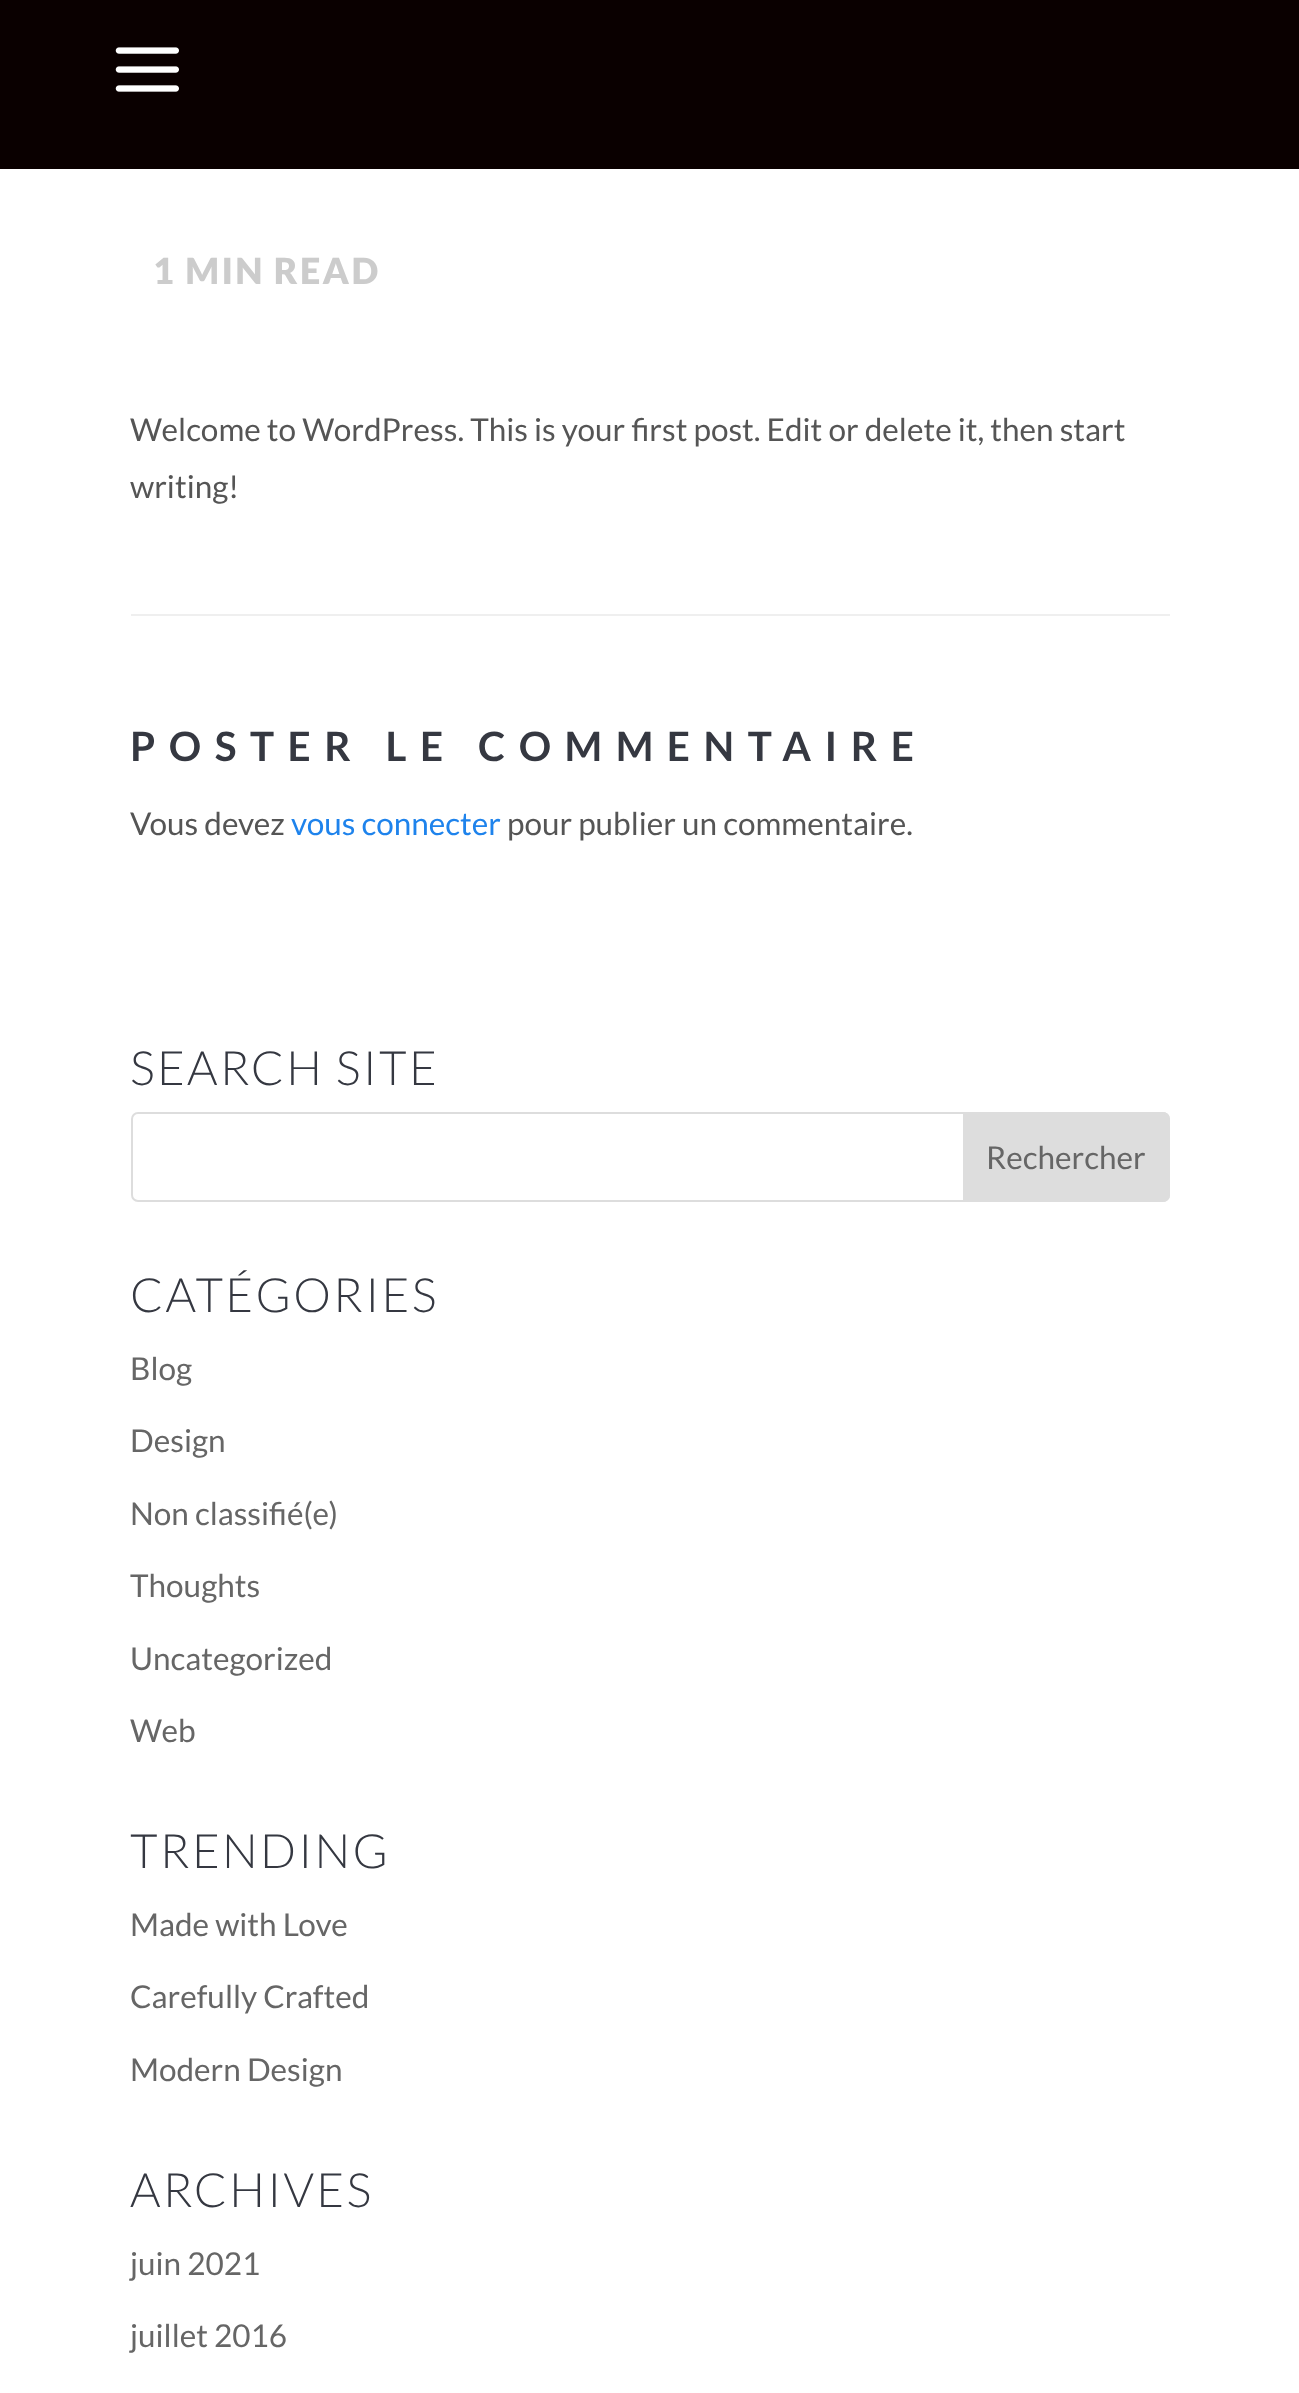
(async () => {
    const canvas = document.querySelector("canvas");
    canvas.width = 1299;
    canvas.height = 2393;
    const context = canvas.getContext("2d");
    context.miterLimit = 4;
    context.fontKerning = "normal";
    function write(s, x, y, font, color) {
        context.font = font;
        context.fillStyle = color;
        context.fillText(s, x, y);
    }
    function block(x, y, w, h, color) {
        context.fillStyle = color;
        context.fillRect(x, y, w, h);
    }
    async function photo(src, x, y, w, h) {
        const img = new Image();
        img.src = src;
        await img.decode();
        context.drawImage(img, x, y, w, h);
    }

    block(0, 0, 1299, 2393, "rgb(255, 255, 255)");
    block(0, 0, 1299, 169, "rgb(10, 0, 0)");
    await photo("media/1.png", 115, 47, 64, 45);
    context.letterSpacing = "2.25px";
    write("1 MIN READ", 153, 284, "900 36px Lato", "rgb(204, 204, 204)");
    context.letterSpacing = "0px";
    write("Welcome to WordPress. This is your first post. Edit or delete it, then start", 130, 441, "31.5px Lato", "rgb(85, 85, 85)");
    write("writing!", 130, 498, "31.5px Lato", "rgb(85, 85, 85)");
    block(131, 614, 1039, 2, "rgb(239, 239, 239)");
    context.letterSpacing = "13.5px";
    write("POSTER LE COMMENTAIRE", 130, 761, "bold 40.5px Lato", "rgb(53, 56, 65)");
    context.letterSpacing = "0px";
    write("Vous devez", 130, 835, "31.5px Lato", "rgb(85, 85, 85)");
    write("vous connecter", 291, 835, "31.5px Lato", "rgb(30, 131, 236)");
    write("pour publier un commentaire.", 507, 835, "31.5px Lato", "rgb(85, 85, 85)");
    context.letterSpacing = "2.25px";
    write("SEARCH SITE", 130, 1085, "300 47.25px Lato", "rgb(53, 56, 65)");
    context.beginPath();
    context.roundRect(132, 1113, 1037, 88, 6);
    context.strokeStyle = "rgb(221, 221, 221)";
    context.lineWidth = 2;
    context.stroke();
    context.fillStyle = "rgb(221, 221, 221)";
    context.beginPath();
    context.roundRect(964, 1113, 205, 88, [0, 6, 6, 0]);
    context.fill();
    context.stroke();
    context.letterSpacing = "0px";
    write("Rechercher", 986, 1169, "31.5px Lato", "rgb(102, 102, 102)");
    context.letterSpacing = "2.25px";
    write("CATÉGORIES", 130, 1312, "300 47.25px Lato", "rgb(53, 56, 65)");
    context.letterSpacing = "0px";
    write("Blog", 130, 1380, "31.5px Lato", "rgb(102, 102, 102)");
    write("Design", 130, 1452, "31.5px Lato", "rgb(102, 102, 102)");
    write("Non classifié(e)", 130, 1525, "31.5px Lato", "rgb(102, 102, 102)");
    write("Thoughts", 130, 1597, "31.5px Lato", "rgb(102, 102, 102)");
    write("Uncategorized", 130, 1670, "31.5px Lato", "rgb(102, 102, 102)");
    write("Web", 130, 1742, "31.5px Lato", "rgb(102, 102, 102)");
    context.letterSpacing = "2.25px";
    write("TRENDING", 130, 1868, "300 47.25px Lato", "rgb(53, 56, 65)");
    context.letterSpacing = "0px";
    write("Made with Love", 130, 1936, "31.5px Lato", "rgb(102, 102, 102)");
    write("Carefully Crafted", 130, 2008, "31.5px Lato", "rgb(102, 102, 102)");
    write("Modern Design", 130, 2081, "31.5px Lato", "rgb(102, 102, 102)");
    context.letterSpacing = "2.25px";
    write("ARCHIVES", 130, 2207, "300 47.25px Lato", "rgb(53, 56, 65)");
    context.letterSpacing = "0px";
    write("juin 2021", 130, 2275, "31.5px Lato", "rgb(102, 102, 102)");
    write("juillet 2016", 130, 2347, "31.5px Lato", "rgb(102, 102, 102)");
})();
